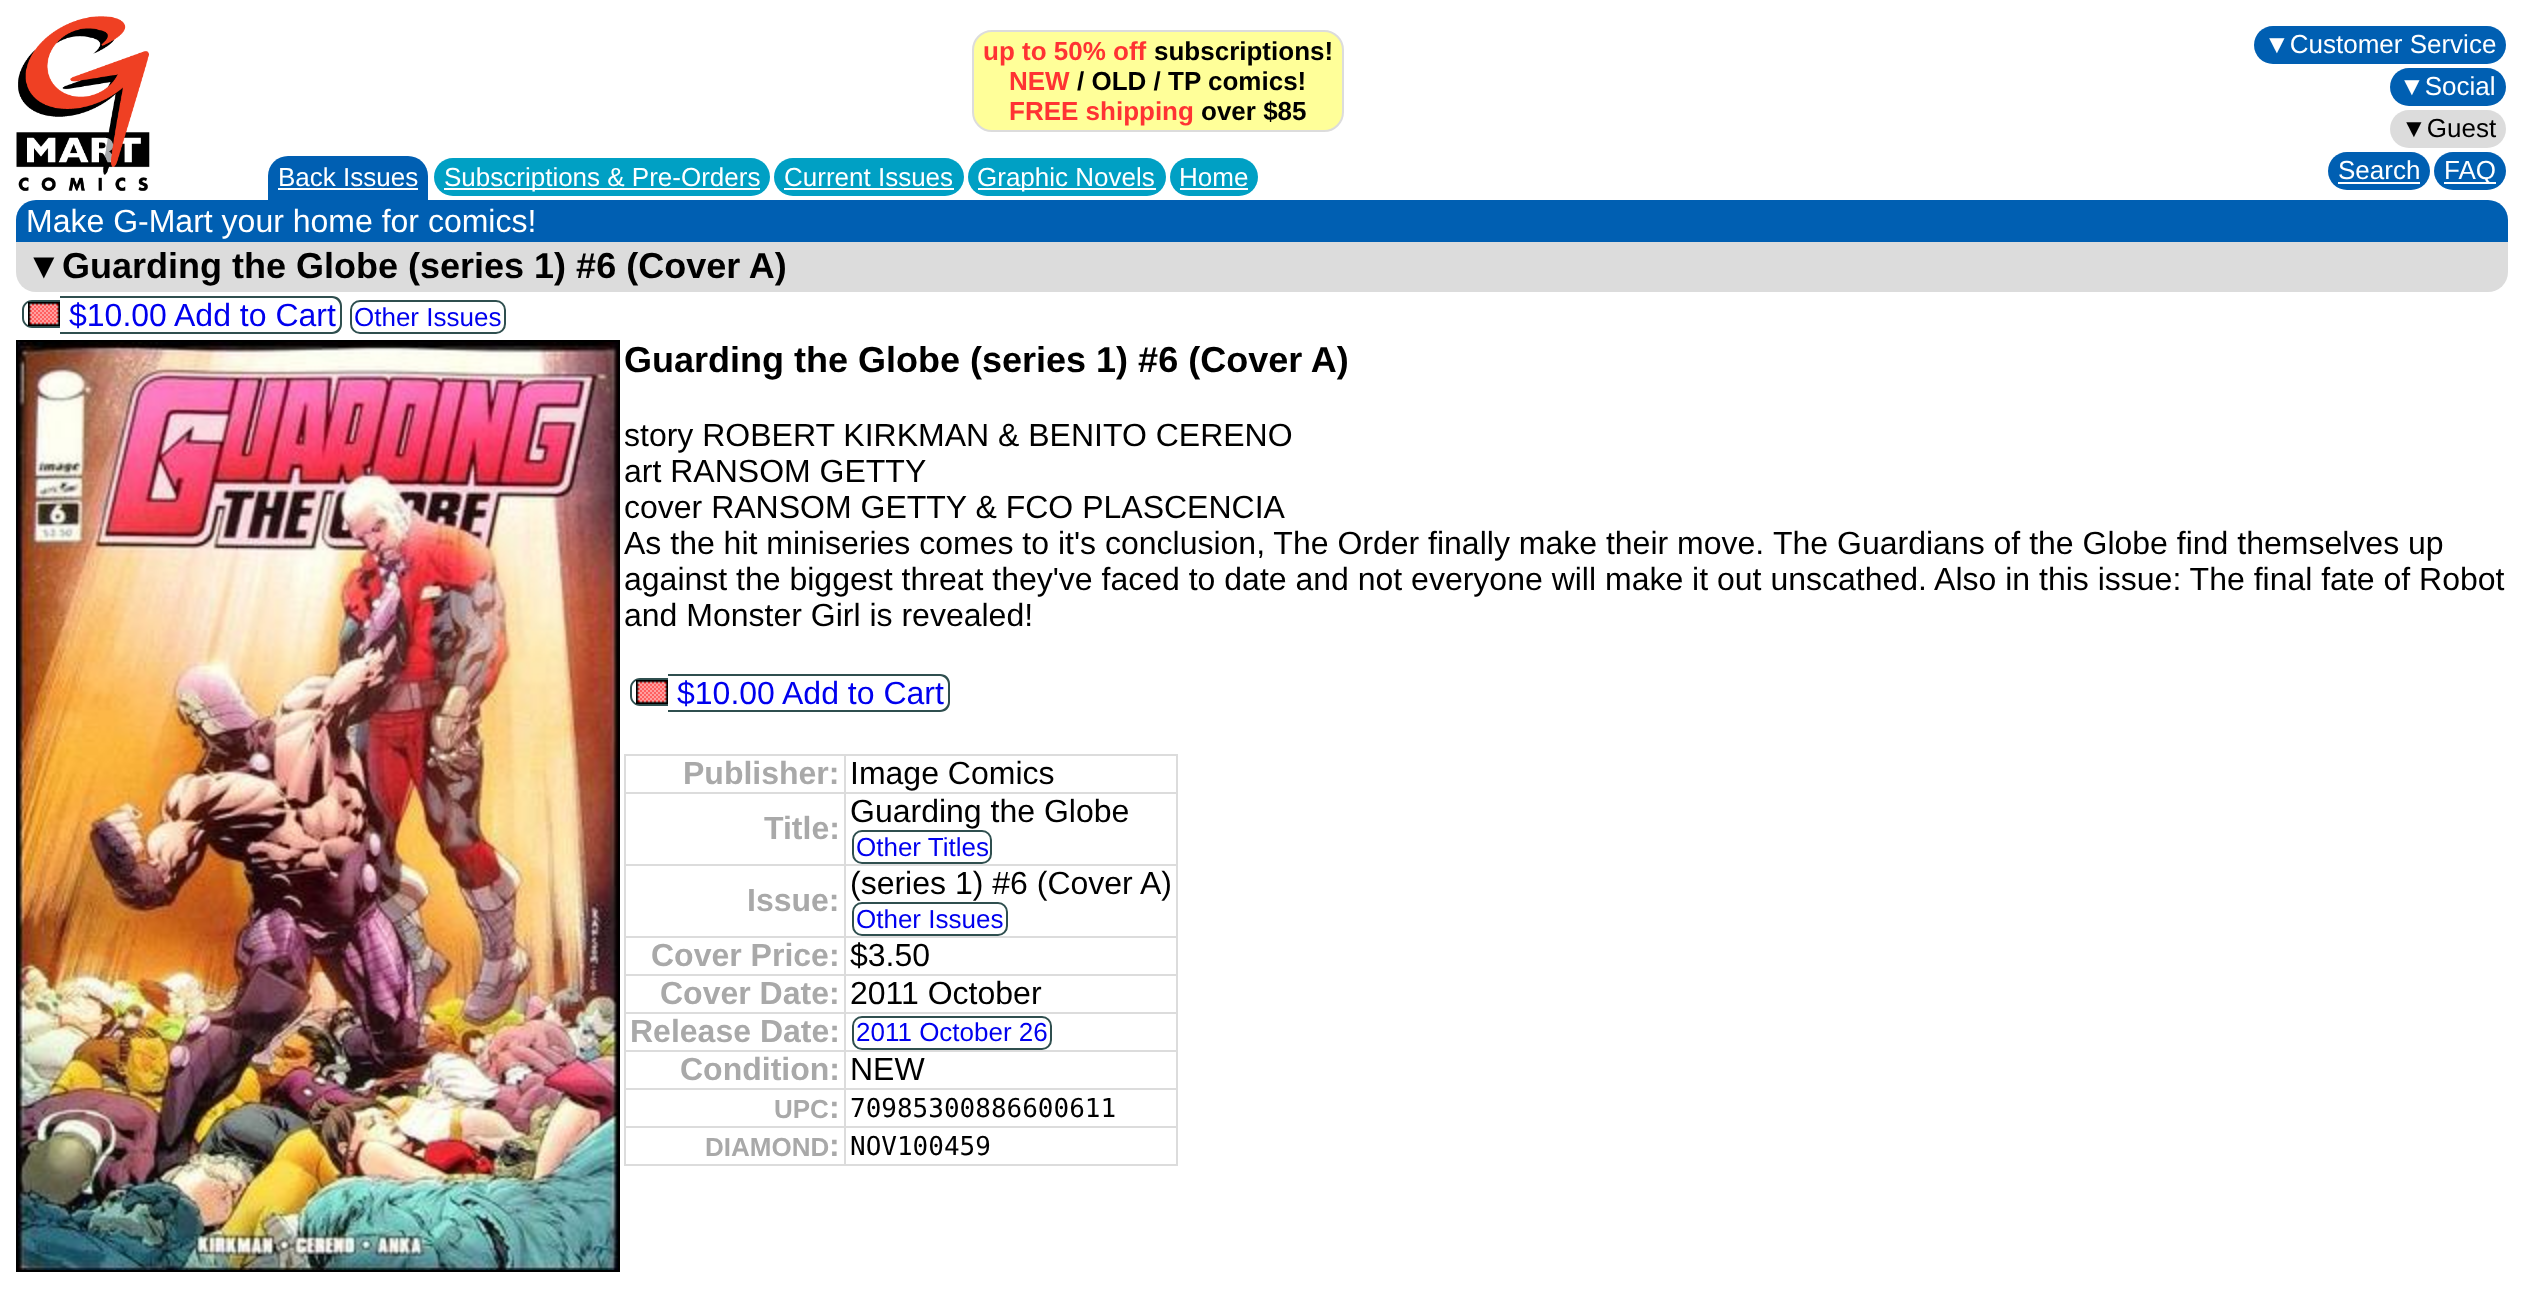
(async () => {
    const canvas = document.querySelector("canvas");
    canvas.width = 2523;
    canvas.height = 1301;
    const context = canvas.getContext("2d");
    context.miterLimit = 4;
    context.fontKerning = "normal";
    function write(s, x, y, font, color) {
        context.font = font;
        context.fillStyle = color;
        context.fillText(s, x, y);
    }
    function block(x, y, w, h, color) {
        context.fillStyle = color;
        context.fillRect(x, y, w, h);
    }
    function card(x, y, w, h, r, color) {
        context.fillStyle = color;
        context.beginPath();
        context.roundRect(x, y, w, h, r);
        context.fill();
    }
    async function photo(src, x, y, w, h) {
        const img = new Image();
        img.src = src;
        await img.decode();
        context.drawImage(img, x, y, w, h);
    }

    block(0, 0, 2523, 1301, "rgb(255, 255, 255)");
    context.fillStyle = "rgb(0, 95, 178)";
    context.beginPath();
    context.roundRect(268, 156, 160, 46, [20, 20, 0, 0]);
    context.fill();
    write("Back Issues", 278, 186, "26px Liberation Sans", "rgb(255, 255, 255)");
    block(278, 188, 140, 2, "rgb(255, 255, 255)");
    card(434, 158, 336, 38, 19, "rgb(0, 160, 196)");
    block(444, 188, 316, 2, "rgb(255, 255, 255)");
    write("Subscriptions & Pre-Orders", 444, 186, "26px Liberation Sans", "rgb(255, 255, 255)");
    card(774, 158, 190, 38, 19, "rgb(0, 160, 196)");
    write("Current Issues", 784, 186, "26px Liberation Sans", "rgb(255, 255, 255)");
    block(784, 188, 170, 2, "rgb(255, 255, 255)");
    card(968, 158, 198, 38, 19, "rgb(0, 160, 196)");
    block(978, 188, 178, 2, "rgb(255, 255, 255)");
    write("Graphic Novels", 977, 186, "26px Liberation Sans", "rgb(255, 255, 255)");
    card(1170, 158, 88, 38, 19, "rgb(0, 160, 196)");
    write("Home", 1179, 186, "26px Liberation Sans", "rgb(255, 255, 255)");
    block(1180, 188, 68, 2, "rgb(255, 255, 255)");
    await photo("media/1.png", 16, 16, 134, 175);
    context.fillStyle = "rgb(255, 255, 153)";
    context.beginPath();
    context.roundRect(973, 31, 370, 100, 19);
    context.fill();
    context.strokeStyle = "rgb(220, 220, 220)";
    context.lineWidth = 2;
    context.stroke();
    write("up to 50% off", 983, 60, "bold 26px Liberation Sans", "rgb(255, 51, 51)");
    write("subscriptions!", 1154, 60, "bold 26px Liberation Sans", "rgb(0, 0, 0)");
    write("NEW", 1009, 90, "bold 26px Liberation Sans", "rgb(255, 51, 51)");
    write("/ OLD / TP", 1077, 90, "bold 26px Liberation Sans", "rgb(0, 0, 0)");
    write("comics!", 1208, 90, "bold 26px Liberation Sans", "rgb(0, 0, 0)");
    write("FREE shipping", 1009, 120, "bold 26px Liberation Sans", "rgb(255, 51, 51)");
    write("over $85", 1201, 120, "bold 26px Liberation Sans", "rgb(0, 0, 0)");
    card(2254, 26, 252, 38, 19, "rgb(0, 95, 178)");
    write("▼Customer Service", 2264, 53, "26px Liberation Sans", "rgb(255, 255, 255)");
    card(2390, 68, 116, 38, 19, "rgb(0, 95, 178)");
    write("▼Social", 2399, 95, "26px Liberation Sans", "rgb(255, 255, 255)");
    card(2390, 110, 116, 38, 19, "rgb(220, 220, 220)");
    write("▼Guest", 2401, 137, "26px Liberation Sans", "rgb(0, 0, 0)");
    card(2328, 152, 102, 38, 19, "rgb(0, 95, 178)");
    write("Search", 2338, 179, "26px Liberation Sans", "rgb(255, 255, 255)");
    block(2338, 182, 82, 2, "rgb(255, 255, 255)");
    card(2434, 152, 72, 38, 19, "rgb(0, 95, 178)");
    block(2444, 182, 52, 2, "rgb(255, 255, 255)");
    write("FAQ", 2444, 179, "26px Liberation Sans", "rgb(255, 255, 255)");
    context.fillStyle = "rgb(0, 95, 178)";
    context.beginPath();
    context.roundRect(16, 200, 2492, 44, [20, 20, 0, 0]);
    context.fill();
    write("Make G-Mart your home for comics!", 26, 232, "32px Liberation Sans", "rgb(255, 255, 255)");
    context.fillStyle = "rgb(220, 220, 220)";
    context.beginPath();
    context.roundRect(16, 242, 2492, 50, [0, 0, 20, 20]);
    context.fill();
    write("▼", 26, 278, "36px Liberation Sans", "rgb(0, 0, 0)");
    write("Guarding the Globe (series 1) #6 (Cover A)", 62, 278, "bold 36px Liberation Sans", "rgb(0, 0, 0)");
    context.fillStyle = "rgb(47, 79, 79)";
    context.beginPath();
    context.moveTo(32, 300);
    context.lineTo(60, 300);
    context.lineTo(60, 328);
    context.lineTo(32, 328);
    context.bezierCurveTo(26.5, 328, 22, 323.5, 22, 318);
    context.lineTo(22, 310);
    context.bezierCurveTo(22, 304.5, 26.5, 300, 32, 300);
    context.closePath();
    context.moveTo(32, 302);
    context.lineTo(60, 302);
    context.lineTo(60, 326);
    context.lineTo(32, 326);
    context.bezierCurveTo(27.5, 326, 24, 322.5, 24, 318);
    context.lineTo(24, 310);
    context.bezierCurveTo(24, 305.5, 27.5, 302, 32, 302);
    context.closePath();
    context.fill("evenodd");
    await photo("media/2.png", 28, 302, 32, 24);
    write("$10.00", 69, 326, "32px Liberation Sans", "rgb(0, 0, 238)");
    block(60, 296, 106, 2, "rgb(47, 79, 79)");
    block(60, 332, 106, 2, "rgb(47, 79, 79)");
    context.beginPath();
    context.moveTo(166, 296);
    context.lineTo(332, 296);
    context.bezierCurveTo(338, 296, 342, 300, 342, 306);
    context.lineTo(342, 324);
    context.bezierCurveTo(342, 330, 338, 334, 332, 334);
    context.lineTo(166, 334);
    context.closePath();
    context.moveTo(166, 298);
    context.lineTo(332, 298);
    context.bezierCurveTo(336, 298, 340, 302, 340, 306);
    context.lineTo(340, 324);
    context.bezierCurveTo(340, 328, 336, 332, 332, 332);
    context.lineTo(166, 332);
    context.closePath();
    context.fill("evenodd");
    write("Add to Cart", 174, 326, "32px Liberation Sans", "rgb(0, 0, 238)");
    context.beginPath();
    context.roundRect(351, 301, 154, 32, 9);
    context.strokeStyle = "rgb(47, 79, 79)";
    context.stroke();
    write("Other Issues", 354, 326, "26px Liberation Sans", "rgb(0, 0, 238)");
    context.strokeStyle = "rgb(0, 0, 0)";
    context.strokeRect(17, 341, 602, 930);
    await photo("media/3.png", 18, 342, 600, 928);
    write("Guarding the Globe (series 1) #6 (Cover A)", 624, 372, "bold 36px Liberation Sans", "rgb(0, 0, 0)");
    write("story ROBERT KIRKMAN & BENITO CERENO", 624, 446, "32px Liberation Sans", "rgb(0, 0, 0)");
    write("art RANSOM GETTY", 624, 482, "32px Liberation Sans", "rgb(0, 0, 0)");
    write("cover RANSOM GETTY & FCO PLASCENCIA", 624, 518, "32px Liberation Sans", "rgb(0, 0, 0)");
    write("As the hit miniseries comes to it's conclusion, The Order finally make their move.", 624, 554, "32px Liberation Sans", "rgb(0, 0, 0)");
    write("The Guardians of the Globe find themselves up", 1773, 554, "32px Liberation Sans", "rgb(0, 0, 0)");
    write("against the biggest threat they've faced to date and not everyone will make it out unscathed. Also in this issue: The final fate of Robot", 624, 590, "32px Liberation Sans", "rgb(0, 0, 0)");
    write("and Monster Girl is revealed!", 624, 626, "32px Liberation Sans", "rgb(0, 0, 0)");
    context.fillStyle = "rgb(47, 79, 79)";
    context.beginPath();
    context.moveTo(640, 678);
    context.lineTo(668, 678);
    context.lineTo(668, 706);
    context.lineTo(640, 706);
    context.bezierCurveTo(634.5, 706, 630, 701.5, 630, 696);
    context.lineTo(630, 688);
    context.bezierCurveTo(630, 682.5, 634.5, 678, 640, 678);
    context.closePath();
    context.moveTo(640, 680);
    context.lineTo(668, 680);
    context.lineTo(668, 704);
    context.lineTo(640, 704);
    context.bezierCurveTo(635.5, 704, 632, 700.5, 632, 696);
    context.lineTo(632, 688);
    context.bezierCurveTo(632, 683.5, 635.5, 680, 640, 680);
    context.closePath();
    context.fill("evenodd");
    await photo("media/2.png", 636, 680, 32, 24);
    write("$10.00", 677, 704, "32px Liberation Sans", "rgb(0, 0, 238)");
    block(668, 674, 106, 2, "rgb(47, 79, 79)");
    block(668, 710, 106, 2, "rgb(47, 79, 79)");
    context.beginPath();
    context.moveTo(774, 674);
    context.lineTo(940, 674);
    context.bezierCurveTo(946, 674, 950, 678, 950, 684);
    context.lineTo(950, 702);
    context.bezierCurveTo(950, 708, 946, 712, 940, 712);
    context.lineTo(774, 712);
    context.closePath();
    context.moveTo(774, 676);
    context.lineTo(940, 676);
    context.bezierCurveTo(944, 676, 948, 680, 948, 684);
    context.lineTo(948, 702);
    context.bezierCurveTo(948, 706, 944, 710, 940, 710);
    context.lineTo(774, 710);
    context.closePath();
    context.fill("evenodd");
    write("Add to Cart", 782, 704, "32px Liberation Sans", "rgb(0, 0, 238)");
    block(844, 754, 334, 2, "rgb(220, 220, 220)");
    block(844, 792, 334, 2, "rgb(220, 220, 220)");
    block(844, 864, 334, 2, "rgb(220, 220, 220)");
    block(844, 936, 334, 2, "rgb(220, 220, 220)");
    block(844, 974, 334, 2, "rgb(220, 220, 220)");
    block(844, 1012, 334, 2, "rgb(220, 220, 220)");
    block(844, 1050, 334, 2, "rgb(220, 220, 220)");
    block(844, 1088, 334, 2, "rgb(220, 220, 220)");
    block(844, 1126, 334, 2, "rgb(220, 220, 220)");
    block(1176, 1126, 2, 40, "rgb(220, 220, 220)");
    block(844, 1164, 334, 2, "rgb(220, 220, 220)");
    block(844, 1126, 2, 40, "rgb(220, 220, 220)");
    block(624, 1126, 222, 2, "rgb(220, 220, 220)");
    block(844, 1088, 2, 40, "rgb(220, 220, 220)");
    block(624, 1088, 222, 2, "rgb(220, 220, 220)");
    block(844, 1050, 2, 40, "rgb(220, 220, 220)");
    block(624, 1050, 222, 2, "rgb(220, 220, 220)");
    block(844, 1012, 2, 40, "rgb(220, 220, 220)");
    block(624, 1012, 222, 2, "rgb(220, 220, 220)");
    block(844, 974, 2, 40, "rgb(220, 220, 220)");
    block(624, 974, 222, 2, "rgb(220, 220, 220)");
    block(844, 936, 2, 40, "rgb(220, 220, 220)");
    block(624, 936, 222, 2, "rgb(220, 220, 220)");
    block(844, 864, 2, 74, "rgb(220, 220, 220)");
    block(624, 864, 222, 2, "rgb(220, 220, 220)");
    block(844, 792, 2, 74, "rgb(220, 220, 220)");
    block(624, 792, 222, 2, "rgb(220, 220, 220)");
    block(844, 754, 2, 40, "rgb(220, 220, 220)");
    block(624, 754, 222, 2, "rgb(220, 220, 220)");
    block(624, 1164, 222, 2, "rgb(220, 220, 220)");
    block(624, 1126, 2, 40, "rgb(220, 220, 220)");
    block(624, 1088, 2, 40, "rgb(220, 220, 220)");
    block(624, 1050, 2, 40, "rgb(220, 220, 220)");
    block(624, 1012, 2, 40, "rgb(220, 220, 220)");
    block(624, 974, 2, 40, "rgb(220, 220, 220)");
    block(624, 936, 2, 40, "rgb(220, 220, 220)");
    block(624, 864, 2, 74, "rgb(220, 220, 220)");
    block(624, 792, 2, 74, "rgb(220, 220, 220)");
    block(624, 754, 2, 40, "rgb(220, 220, 220)");
    write("Publisher:", 683, 784, "bold 32px Liberation Sans", "rgb(169, 169, 169)");
    block(1176, 1088, 2, 40, "rgb(220, 220, 220)");
    block(1176, 1050, 2, 40, "rgb(220, 220, 220)");
    block(1176, 1012, 2, 40, "rgb(220, 220, 220)");
    block(1176, 974, 2, 40, "rgb(220, 220, 220)");
    block(1176, 936, 2, 40, "rgb(220, 220, 220)");
    block(1176, 864, 2, 74, "rgb(220, 220, 220)");
    block(1176, 792, 2, 74, "rgb(220, 220, 220)");
    block(1176, 754, 2, 40, "rgb(220, 220, 220)");
    write("Image Comics", 850, 784, "32px Liberation Sans", "rgb(0, 0, 0)");
    write("Title:", 764, 839, "bold 32px Liberation Sans", "rgb(169, 169, 169)");
    write("Guarding the Globe", 850, 822, "32px Liberation Sans", "rgb(0, 0, 0)");
    context.beginPath();
    context.roundRect(853, 831, 138, 32, 9);
    context.strokeStyle = "rgb(47, 79, 79)";
    context.stroke();
    write("Other Titles", 856, 856, "26px Liberation Sans", "rgb(0, 0, 238)");
    write("Issue:", 747, 911, "bold 32px Liberation Sans", "rgb(169, 169, 169)");
    write("(series 1) #6 (Cover A)", 850, 894, "32px Liberation Sans", "rgb(0, 0, 0)");
    context.beginPath();
    context.roundRect(853, 903, 154, 32, 9);
    context.stroke();
    write("Other Issues", 856, 928, "26px Liberation Sans", "rgb(0, 0, 238)");
    write("Cover Price:", 651, 966, "bold 32px Liberation Sans", "rgb(169, 169, 169)");
    write("$3.50", 850, 966, "32px Liberation Sans", "rgb(0, 0, 0)");
    write("Cover Date:", 660, 1004, "bold 32px Liberation Sans", "rgb(169, 169, 169)");
    write("2011 October", 850, 1004, "32px Liberation Sans", "rgb(0, 0, 0)");
    write("Release Date:", 630, 1042, "bold 32px Liberation Sans", "rgb(169, 169, 169)");
    context.beginPath();
    context.roundRect(853, 1017, 198, 32, 9);
    context.stroke();
    write("2011 October 26", 856, 1041, "26px Liberation Sans", "rgb(0, 0, 238)");
    write("Condition:", 680, 1080, "bold 32px Liberation Sans", "rgb(169, 169, 169)");
    write("NEW", 850, 1080, "32px Liberation Sans", "rgb(0, 0, 0)");
    write("UPC", 774, 1118, "bold 26px Liberation Sans", "rgb(169, 169, 169)");
    write(":", 829, 1118, "bold 32px Liberation Sans", "rgb(169, 169, 169)");
    write("70985300886600611", 850, 1117, "26px DejaVu Sans Mono", "rgb(0, 0, 0)");
    write("DIAMOND", 705, 1156, "bold 26px Liberation Sans", "rgb(169, 169, 169)");
    write(":", 829, 1156, "bold 32px Liberation Sans", "rgb(169, 169, 169)");
    write("NOV100459", 850, 1155, "26px DejaVu Sans Mono", "rgb(0, 0, 0)");
})();
